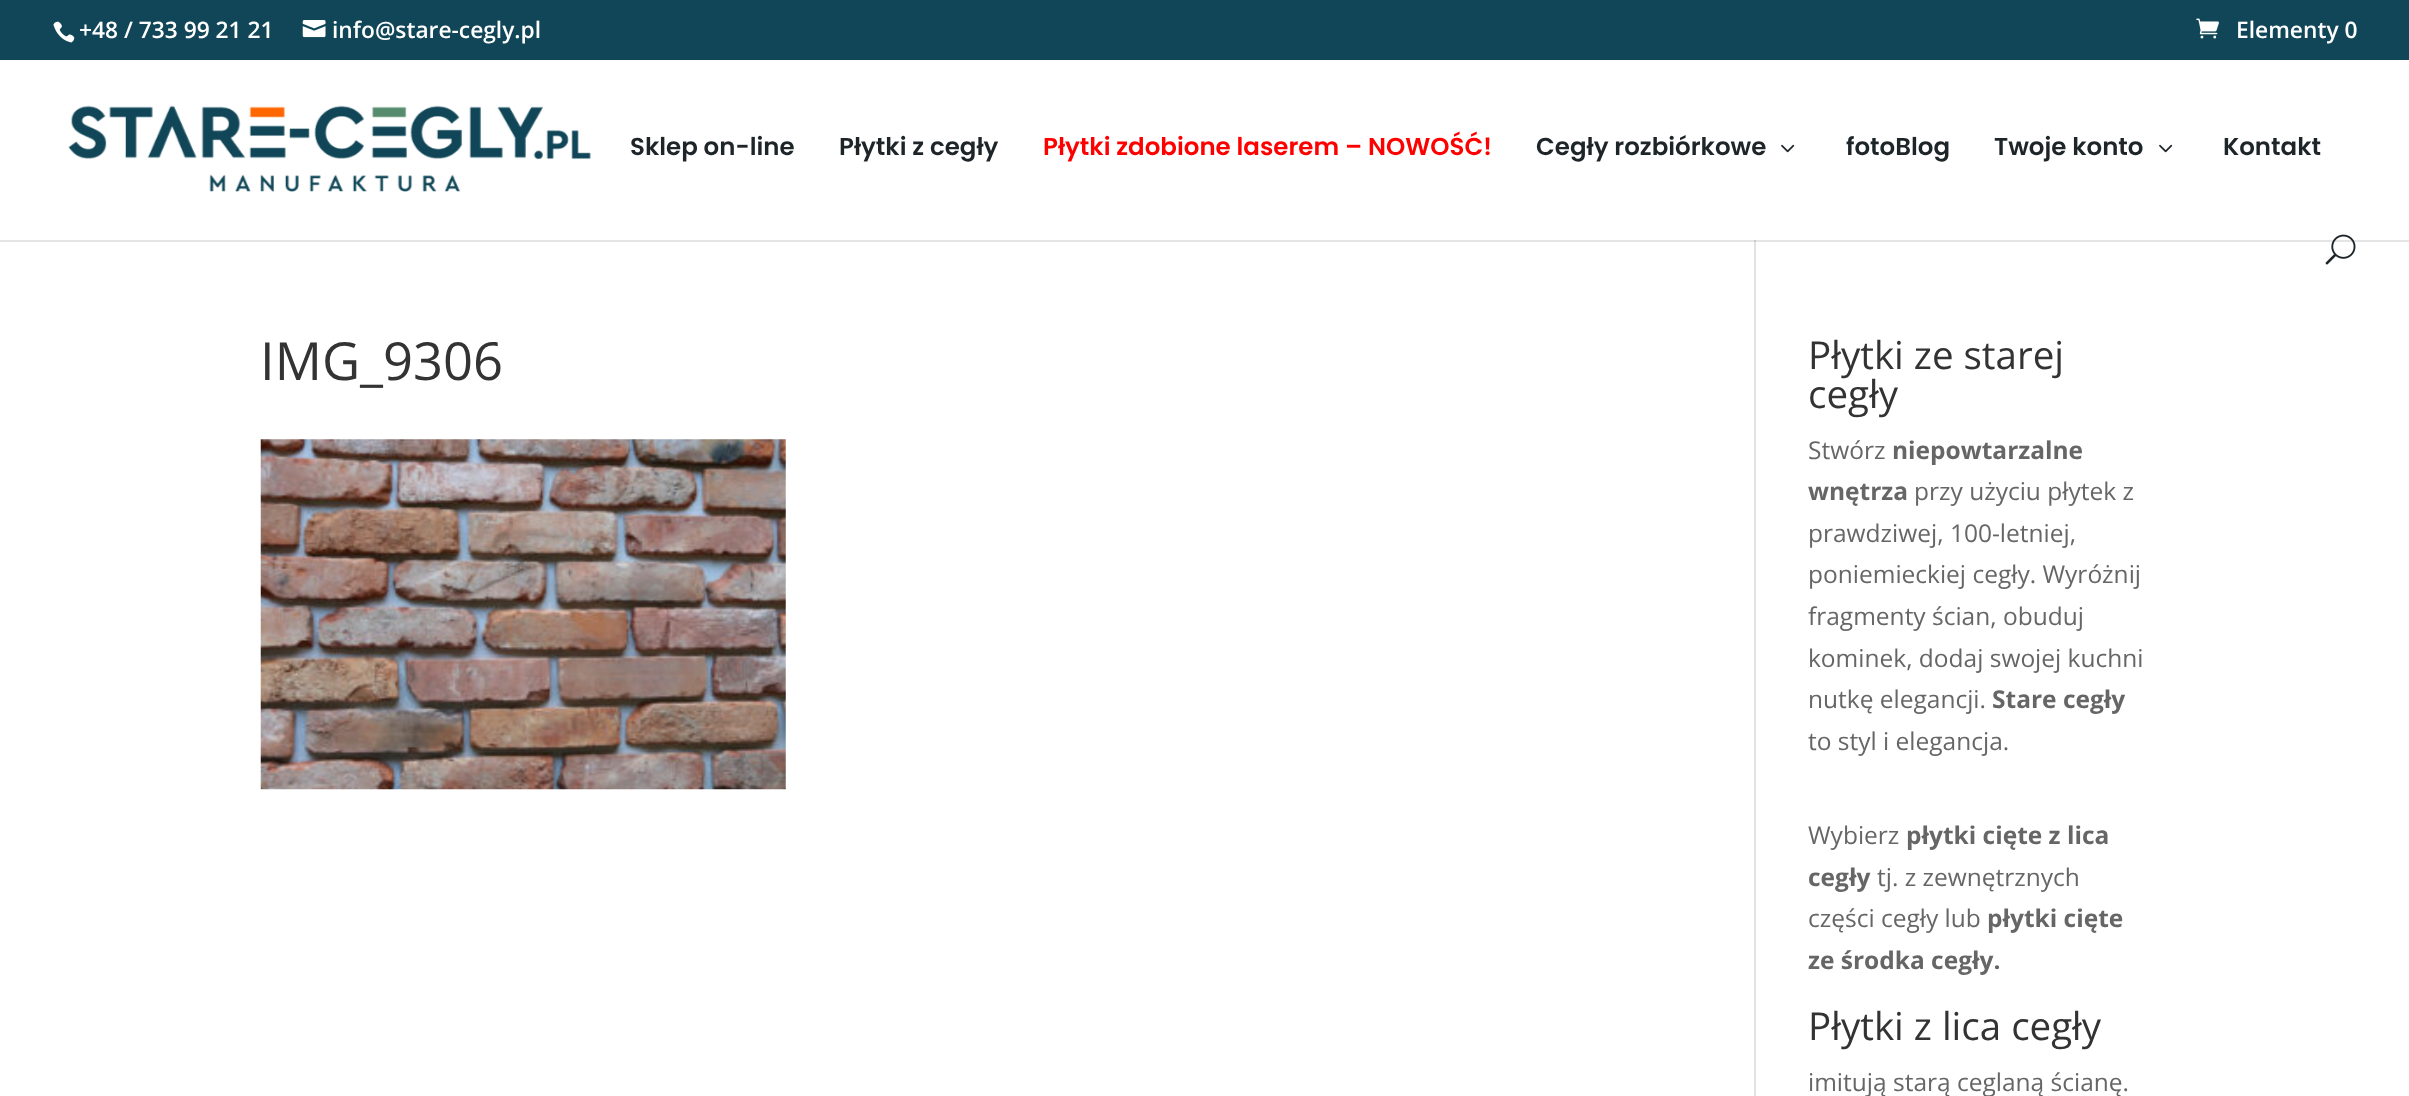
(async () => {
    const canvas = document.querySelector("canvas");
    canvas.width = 2409;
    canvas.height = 1096;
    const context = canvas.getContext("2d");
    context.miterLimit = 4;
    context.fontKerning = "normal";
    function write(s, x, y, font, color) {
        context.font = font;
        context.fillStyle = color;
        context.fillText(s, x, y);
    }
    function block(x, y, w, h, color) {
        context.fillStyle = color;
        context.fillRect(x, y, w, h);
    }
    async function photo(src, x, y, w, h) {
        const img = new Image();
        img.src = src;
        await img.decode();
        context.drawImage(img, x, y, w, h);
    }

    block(0, 0, 2409, 1096, "rgb(255, 255, 255)");
    block(0, 0, 2409, 60, "rgb(16, 70, 87)");
    await photo("media/1.png", 53, 21, 22, 22);
    write("+48 / 733 99 21 21", 79, 38, "600 22.75px Open Sans", "rgb(255, 255, 255)");
    await photo("media/2.png", 302, 20, 24, 18);
    write("info@stare-cegly.pl", 332, 38, "600 22.75px Open Sans", "rgb(255, 255, 255)");
    await photo("media/3.png", 2196, 18, 23, 21);
    write("Elementy 0", 2236, 38, "600 22.75px Open Sans", "rgb(255, 255, 255)");
    block(1754, 233, 2, 863, "rgb(226, 226, 226)");
    context.fillStyle = "rgba(0, 0, 0, 0.1)";
    context.beginPath();
    context.moveTo(0, 240);
    context.lineTo(0, 242);
    context.lineTo(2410, 242);
    context.lineTo(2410, 61);
    context.lineTo(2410, 240);
    context.closePath();
    context.fill();
    block(1754, 233, 2, 7, "rgb(255, 255, 255)");
    await photo("media/4.png", 68, 105, 523, 87);
    write("Sklep on-line", 630, 155, "600 24.5px Poppins", "rgb(30, 37, 41)");
    write("Płytki z cegły", 839, 155, "600 24.5px Poppins", "rgb(30, 37, 41)");
    write("Płytki zdobione laserem – NOWOŚĆ!", 1043, 155, "600 24.5px Poppins", "rgb(255, 0, 0)");
    write("Cegły rozbiórkowe", 1536, 155, "600 24.5px Poppins", "rgb(30, 37, 41)");
    await photo("media/5.png", 1781, 144, 14, 9);
    write("fotoBlog", 1846, 155, "600 24.5px Poppins", "rgb(30, 37, 41)");
    write("Twoje konto", 1994, 155, "600 24.5px Poppins", "rgb(30, 37, 41)");
    await photo("media/5.png", 2159, 144, 14, 9);
    write("Kontakt", 2223, 155, "600 24.5px Poppins", "rgb(30, 37, 41)");
    await photo("media/6.png", 2325, 234, 31, 31);
    write("IMG_9306", 260, 380, "52.5px Open Sans", "rgb(51, 51, 51)");
    await photo("media/7.png", 260, 439, 526, 351);
    write("Płytki ze starej", 1808, 369, "38.5px Open Sans", "rgb(51, 51, 51)");
    write("cegły", 1808, 408, "38.5px Open Sans", "rgb(51, 51, 51)");
    write("Stwórz", 1808, 459, "24.5px Open Sans", "rgb(102, 102, 102)");
    write("niepowtarzalne", 1892, 459, "bold 24.5px Open Sans", "rgb(102, 102, 102)");
    write("wnętrza", 1808, 500, "bold 24.5px Open Sans", "rgb(102, 102, 102)");
    write("przy użyciu płytek z", 1914, 500, "24.5px Open Sans", "rgb(102, 102, 102)");
    write("prawdziwej, 100-letniej,", 1808, 542, "24.5px Open Sans", "rgb(102, 102, 102)");
    write("poniemieckiej cegły. Wyróżnij", 1808, 583, "24.5px Open Sans", "rgb(102, 102, 102)");
    write("fragmenty ścian, obuduj", 1808, 625, "24.5px Open Sans", "rgb(102, 102, 102)");
    write("kominek, dodaj swojej kuchni", 1808, 667, "24.5px Open Sans", "rgb(102, 102, 102)");
    write("nutkę elegancji.", 1808, 708, "24.5px Open Sans", "rgb(102, 102, 102)");
    write("Stare cegły", 1992, 708, "bold 24.5px Open Sans", "rgb(102, 102, 102)");
    write("to styl i elegancja.", 1808, 750, "24.5px Open Sans", "rgb(102, 102, 102)");
    write("Wybierz", 1808, 844, "24.5px Open Sans", "rgb(102, 102, 102)");
    write("płytki cięte z lica", 1906, 844, "bold 24.5px Open Sans", "rgb(102, 102, 102)");
    write("cegły", 1808, 886, "bold 24.5px Open Sans", "rgb(102, 102, 102)");
    write("tj. z zewnętrznych", 1877, 886, "24.5px Open Sans", "rgb(102, 102, 102)");
    write("części cegły lub", 1808, 927, "24.5px Open Sans", "rgb(102, 102, 102)");
    write("płytki cięte", 1987, 927, "bold 24.5px Open Sans", "rgb(102, 102, 102)");
    write("ze środka cegły.", 1808, 969, "bold 24.5px Open Sans", "rgb(102, 102, 102)");
    write("Płytki z lica cegły", 1808, 1040, "38.5px Open Sans", "rgb(51, 51, 51)");
    write("imitują starą ceglaną ścianę.", 1808, 1091, "24.5px Open Sans", "rgb(102, 102, 102)");
})();
